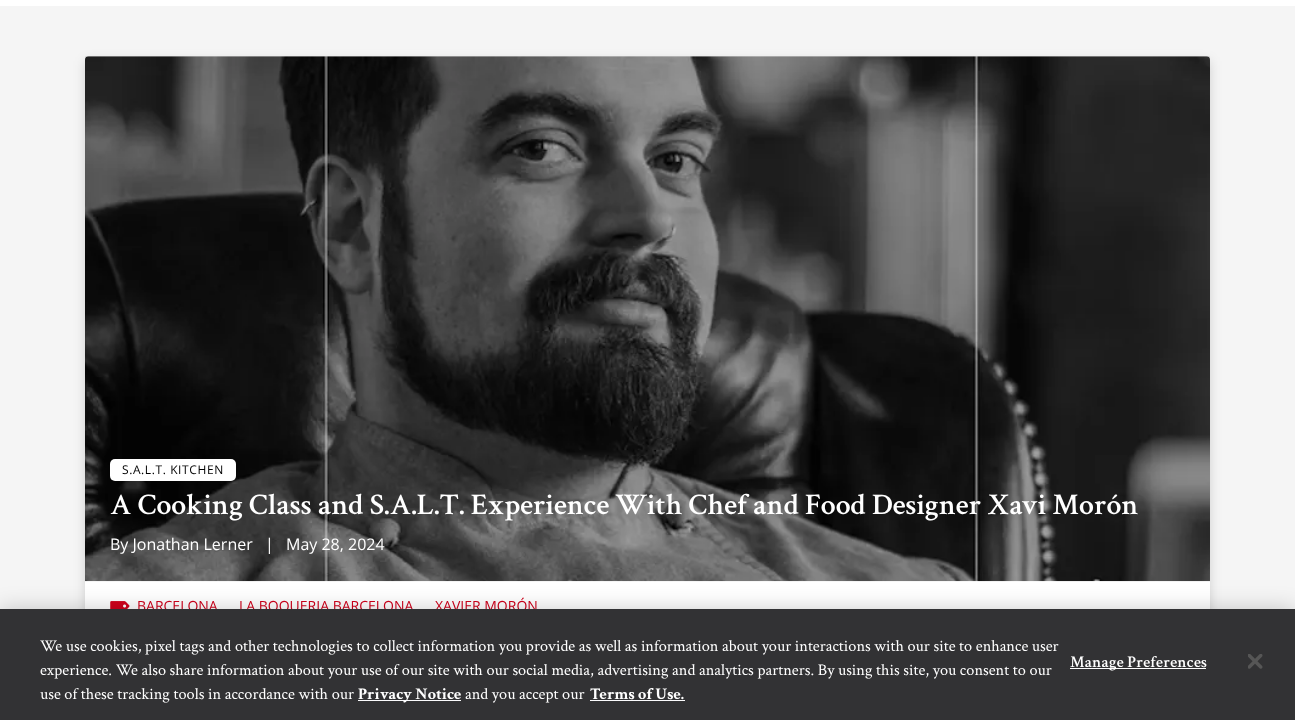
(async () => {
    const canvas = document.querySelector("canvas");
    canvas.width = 1295;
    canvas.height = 720;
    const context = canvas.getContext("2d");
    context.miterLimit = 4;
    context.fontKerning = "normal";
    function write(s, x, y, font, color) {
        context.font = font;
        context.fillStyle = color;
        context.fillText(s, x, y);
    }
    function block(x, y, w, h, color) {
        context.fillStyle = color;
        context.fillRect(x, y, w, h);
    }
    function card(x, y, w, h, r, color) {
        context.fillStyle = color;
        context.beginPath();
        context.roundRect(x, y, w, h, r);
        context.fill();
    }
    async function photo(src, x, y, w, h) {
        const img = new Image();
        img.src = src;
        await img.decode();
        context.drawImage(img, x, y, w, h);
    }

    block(0, 0, 1295, 720, "rgb(245, 245, 245)");
    block(0, 0, 1295, 6, "rgb(255, 255, 255)");
    block(85, 581, 1125, 28, "rgb(255, 255, 255)");
    await photo("media/2.png", 110, 601, 20, 8);
    context.save();
    context.beginPath();
    context.moveTo(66, 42);
    context.lineTo(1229, 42);
    context.lineTo(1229, 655);
    context.lineTo(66, 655);
    context.closePath();
    context.moveTo(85, 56);
    context.lineTo(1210, 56);
    context.lineTo(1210, 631);
    context.lineTo(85, 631);
    context.closePath();
    context.clip("evenodd");
    context.fillStyle = "rgba(0, 0, 0, 0.15)";
    context.filter = "blur(6px)";
    context.beginPath();
    context.rect(85, 61, 1125, 575);
    context.fill();
    context.filter = "none";
    context.restore();
    block(85, 56, 1125, 4, "rgb(221, 221, 221)");
    await photo("media/1.png", 85, 56, 1125, 526);
    card(110, 459, 126, 22, 5, "rgb(255, 255, 255)");
    context.letterSpacing = "0.6px";
    write("S.A.L.T. KITCHEN", 122, 474, "12px Open Sans", "rgb(0, 0, 0)");
    context.letterSpacing = "0px";
    write("A Cooking Class and S.A.L.T. Experience With Chef and Food Designer Xavi Morón", 110, 514, "600 30px Crimson Text", "rgb(255, 255, 255)");
    write("By Jonathan Lerner", 110, 550, "16px Open Sans", "rgb(255, 255, 255)");
    write("|", 265, 550, "16px Open Sans", "rgb(255, 255, 255)");
    write("May 28, 2024", 286, 550, "16px Open Sans", "rgb(255, 255, 255)");
    write("BARCELONA", 137, 611, "14px Open Sans", "rgb(208, 2, 27)");
    write("LA BOQUERIA BARCELONA", 239, 611, "14px Open Sans", "rgb(208, 2, 27)");
    write("XAVIER MORÓN", 435, 611, "14px Open Sans", "rgb(208, 2, 27)");
    context.fillStyle = "rgba(0, 0, 0, 0.2)";
    context.filter = "blur(11px)";
    context.beginPath();
    context.rect(0, 609, 1295, 111);
    context.fill();
    context.filter = "none";
    block(0, 609, 1295, 111, "rgb(50, 50, 52)");
    write("We use cookies, pixel tags and other technologies to collect information you provide as well as information about your interactions with our site to enhance user", 40, 651, "16.25px Crimson Text", "rgb(255, 255, 255)");
    write("experience. We also share information about your use of our site with our social media, advertising and analytics partners. By using this site, you consent to our", 40, 675, "16.25px Crimson Text", "rgb(255, 255, 255)");
    write("use of these tracking tools in accordance with our", 40, 699, "16.25px Crimson Text", "rgb(255, 255, 255)");
    block(358, 700, 103, 1, "rgb(252, 252, 253)");
    write("Privacy Notice", 358, 699, "bold 16.25px Crimson Text", "rgb(255, 255, 255)");
    write("and you accept our", 465, 699, "16.25px Crimson Text", "rgb(255, 255, 255)");
    write("Terms of Use.", 590, 699, "bold 16.25px Crimson Text", "rgb(255, 255, 255)");
    block(590, 700, 95, 1, "rgb(252, 252, 253)");
    block(1070, 668, 136, 1, "rgb(252, 252, 253)");
    context.letterSpacing = "0.2px";
    write("Manage Preferences", 1070, 667, "600 16.25px Crimson Text", "rgb(255, 255, 255)");
    await photo("media/3.png", 1248, 654, 15, 15);
})();
